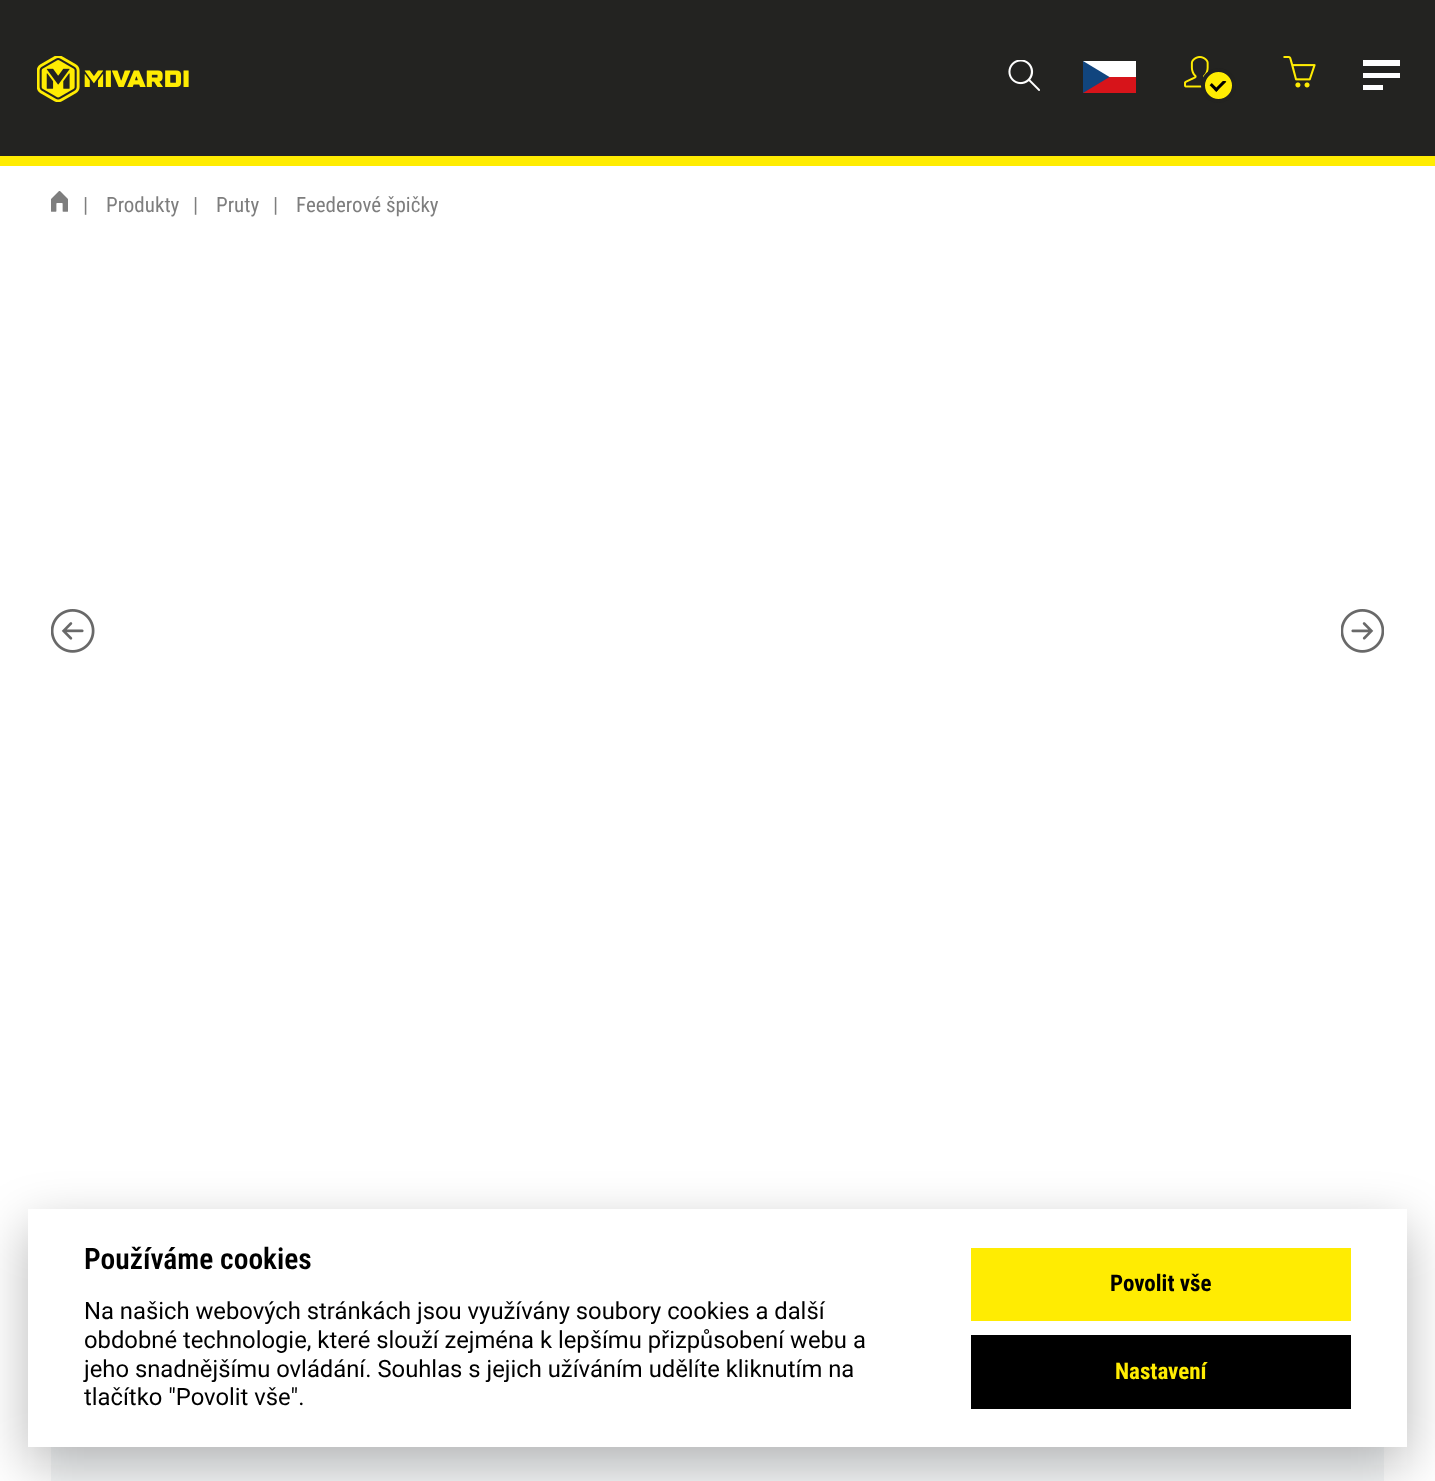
(async () => {
    const canvas = document.querySelector("canvas");
    canvas.width = 1435;
    canvas.height = 1481;
    const context = canvas.getContext("2d");
    context.miterLimit = 4;
    context.fontKerning = "normal";
    function write(s, x, y, font, color) {
        context.font = font;
        context.fillStyle = color;
        context.fillText(s, x, y);
    }
    function block(x, y, w, h, color) {
        context.fillStyle = color;
        context.fillRect(x, y, w, h);
    }
    async function photo(src, x, y, w, h) {
        const img = new Image();
        img.src = src;
        await img.decode();
        context.drawImage(img, x, y, w, h);
    }

    block(0, 0, 1435, 1481, "rgb(35, 35, 33)");
    block(0, 156, 1435, 10, "rgb(255, 236, 2)");
    await photo("media/1.png", 37, 56, 152, 46);
    await photo("media/2.png", 1008, 60, 32, 31);
    block(1083, 77, 53, 16, "rgb(215, 20, 26)");
    block(1083, 61, 53, 16, "rgb(255, 255, 255)");
    context.fillStyle = "rgb(17, 69, 126)";
    context.beginPath();
    context.moveTo(1109.5, 77);
    context.lineTo(1083, 61);
    context.lineTo(1083, 93);
    context.closePath();
    context.fill();
    await photo("media/3.png", 1184, 56, 25, 32);
    context.fillStyle = "rgb(255, 236, 2)";
    context.beginPath();
    context.arc(1218.5, 85.5, 15.5, 0, Math.PI * 2);
    context.fill();
    context.strokeStyle = "rgb(34, 34, 32)";
    context.lineWidth = 4;
    context.stroke();
    await photo("media/4.png", 1209, 81, 18, 11);
    await photo("media/5.png", 1283, 56, 33, 32);
    block(1363, 60, 37, 6, "rgb(255, 255, 255)");
    block(1363, 73, 37, 5, "rgb(255, 255, 255)");
    block(1363, 85, 20, 5, "rgb(255, 255, 255)");
    block(0, 166, 1435, 1315, "rgb(255, 255, 255)");
    await photo("media/6.png", 51, 191, 17, 21);
    write("|", 83, 212, "21px Roboto Condensed", "rgb(126, 126, 126)");
    write("Produkty", 106, 212, "21px Roboto Condensed", "rgb(126, 126, 126)");
    write("|", 193, 212, "21px Roboto Condensed", "rgb(126, 126, 126)");
    write("Pruty", 216, 212, "21px Roboto Condensed", "rgb(126, 126, 126)");
    write("|", 273, 212, "21px Roboto Condensed", "rgb(126, 126, 126)");
    write("Feederové špičky", 296, 212, "21px Roboto Condensed", "rgb(126, 126, 126)");
    await photo("media/7.png", 51, 609, 44, 44);
    await photo("media/8.png", 1341, 609, 43, 44);
    block(51, 1447, 1333, 34, "rgb(245, 247, 248)");
    context.fillStyle = "rgba(2, 2, 3, 0.28)";
    context.filter = "blur(26px)";
    context.beginPath();
    context.rect(28, 1227, 1379, 238);
    context.fill();
    context.filter = "none";
    block(28, 1209, 1379, 238, "rgb(255, 255, 255)");
    write("Používáme cookies", 84, 1269, "600 29.5px Roboto Condensed", "rgb(0, 0, 0)");
    write("Na našich webových stránkách jsou využívány soubory cookies a další", 84, 1319, "23.8px Roboto", "rgb(0, 0, 0)");
    write("obdobné technologie, které slouží zejména k lepšímu přizpůsobení webu a", 84, 1348, "23.8px Roboto", "rgb(0, 0, 0)");
    write("jeho snadnějšímu ovládání. Souhlas s jejich užíváním udělíte kliknutím na", 84, 1377, "23.8px Roboto", "rgb(0, 0, 0)");
    write("tlačítko \"Povolit vše\".", 84, 1405, "23.8px Roboto", "rgb(0, 0, 0)");
    block(971, 1248, 380, 73, "rgb(255, 236, 2)");
    write("Povolit vše", 1110, 1291, "bold 23px Roboto Condensed", "rgb(0, 0, 0)");
    block(971, 1335, 380, 74, "rgb(0, 0, 0)");
    write("Nastavení", 1115, 1379, "bold 23px Roboto Condensed", "rgb(255, 236, 2)");
})();
